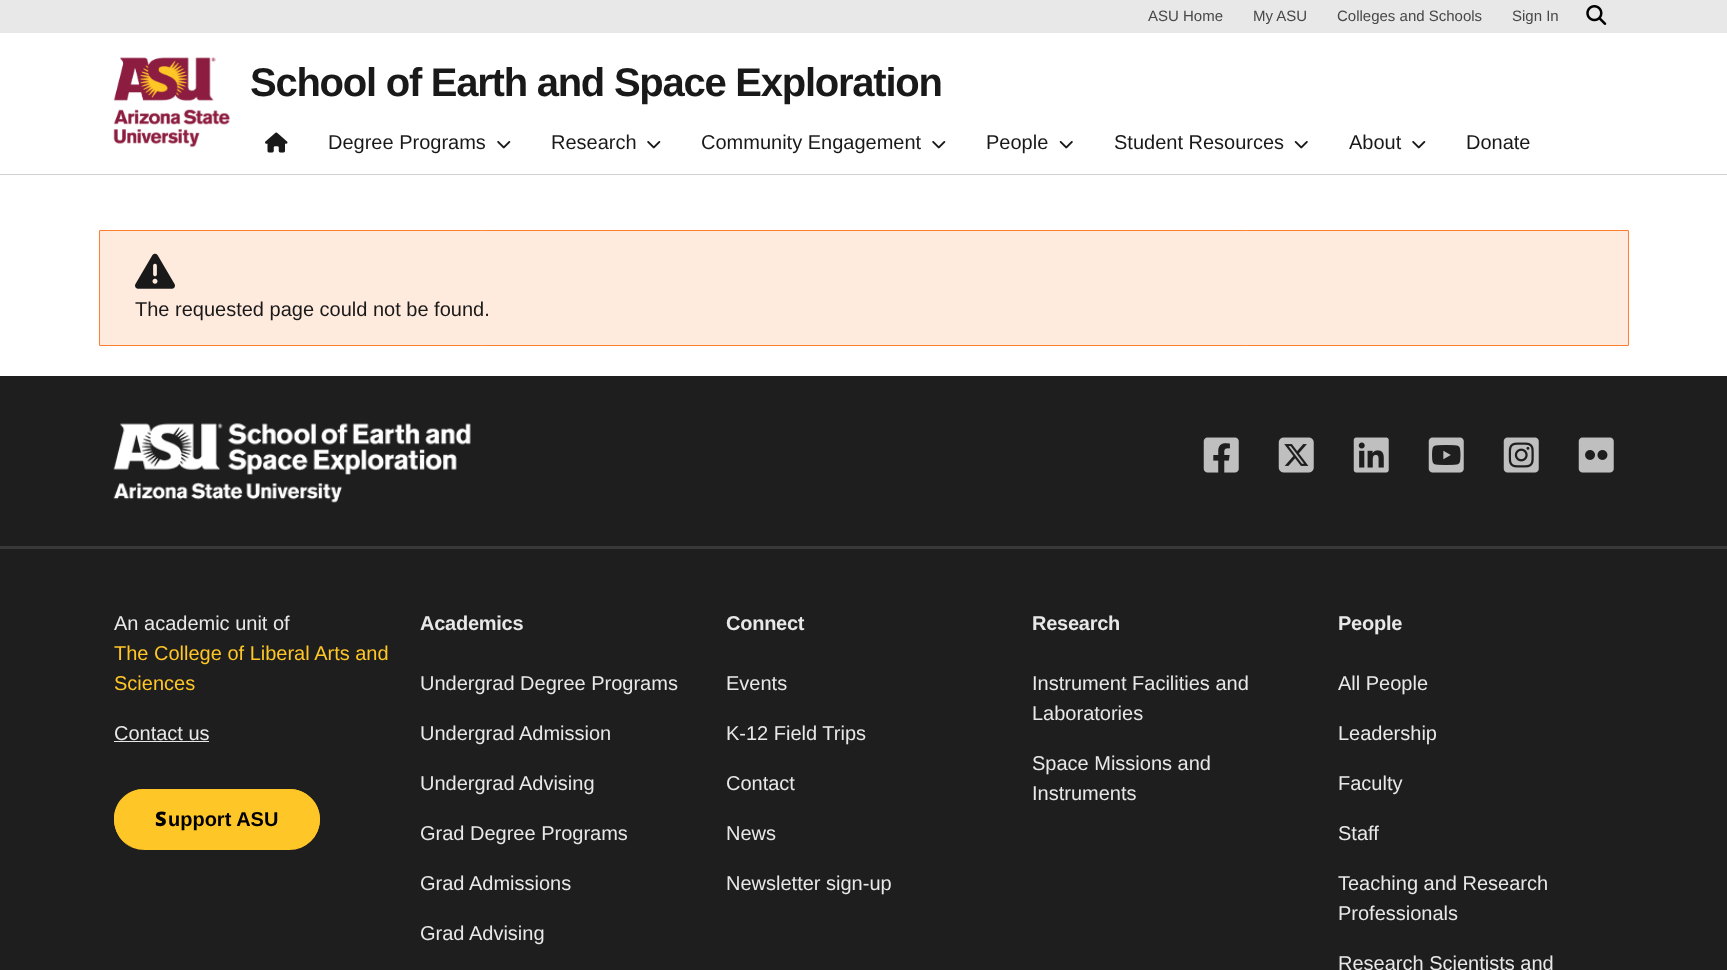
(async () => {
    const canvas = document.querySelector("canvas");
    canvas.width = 1727;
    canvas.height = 970;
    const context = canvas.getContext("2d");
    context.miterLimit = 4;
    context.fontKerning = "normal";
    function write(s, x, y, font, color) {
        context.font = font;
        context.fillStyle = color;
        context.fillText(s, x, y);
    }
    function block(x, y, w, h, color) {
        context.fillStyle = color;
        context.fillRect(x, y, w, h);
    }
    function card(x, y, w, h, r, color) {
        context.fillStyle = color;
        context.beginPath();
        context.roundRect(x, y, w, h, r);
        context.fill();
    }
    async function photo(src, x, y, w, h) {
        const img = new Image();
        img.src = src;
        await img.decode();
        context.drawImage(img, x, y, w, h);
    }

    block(0, 0, 1727, 970, "rgb(255, 255, 255)");
    block(0, 0, 1727, 33, "rgb(232, 232, 232)");
    write("ASU Home", 1148, 21, "15px Liberation Sans", "rgb(72, 72, 72)");
    write("My ASU", 1253, 21, "15px Liberation Sans", "rgb(72, 72, 72)");
    write("Colleges and Schools", 1337, 21, "15px Liberation Sans", "rgb(72, 72, 72)");
    write("Sign In", 1512, 21, "15px Liberation Sans", "rgb(72, 72, 72)");
    await photo("media/1.png", 1586, 5, 21, 20);
    block(0, 174, 1727, 1, "rgb(208, 208, 208)");
    await photo("media/2.png", 113, 57, 117, 91);
    context.letterSpacing = "-1.25px";
    write("School of Earth and Space Exploration", 250, 96, "bold 40px Liberation Sans", "rgb(25, 25, 25)");
    await photo("media/3.png", 265, 132, 23, 21);
    context.letterSpacing = "0px";
    write("Degree Programs", 328, 149, "20px Liberation Sans", "rgb(25, 25, 25)");
    await photo("media/4.png", 497, 141, 14, 8);
    write("Research", 551, 149, "20px Liberation Sans", "rgb(25, 25, 25)");
    await photo("media/4.png", 647, 141, 14, 8);
    write("Community Engagement", 701, 149, "20px Liberation Sans", "rgb(25, 25, 25)");
    await photo("media/4.png", 932, 141, 14, 8);
    write("People", 986, 149, "20px Liberation Sans", "rgb(25, 25, 25)");
    await photo("media/5.png", 1059, 141, 14, 8);
    write("Student Resources", 1114, 149, "20px Liberation Sans", "rgb(25, 25, 25)");
    await photo("media/5.png", 1294, 141, 14, 8);
    write("About", 1349, 149, "20px Liberation Sans", "rgb(25, 25, 25)");
    await photo("media/4.png", 1412, 141, 14, 8);
    write("Donate", 1466, 149, "20px Liberation Sans", "rgb(25, 25, 25)");
    context.fillStyle = "rgb(255, 234, 222)";
    context.beginPath();
    context.rect(99.5, 230.5, 1529, 115);
    context.fill();
    context.strokeStyle = "rgb(255, 127, 50)";
    context.stroke();
    await photo("media/6.png", 135, 253, 40, 36);
    write("The requested page could not be found.", 135, 316, "20px Liberation Sans", "rgb(25, 25, 25)");
    block(0, 376, 1727, 594, "rgb(30, 30, 30)");
    await photo("media/7.png", 113, 423, 358, 80);
    await photo("media/8.png", 1203, 437, 36, 36);
    await photo("media/9.png", 1278, 437, 36, 36);
    await photo("media/10.png", 1353, 437, 36, 36);
    await photo("media/11.png", 1428, 437, 36, 36);
    await photo("media/12.png", 1503, 437, 36, 36);
    await photo("media/13.png", 1578, 437, 36, 36);
    block(0, 546, 1727, 3, "rgb(57, 57, 57)");
    write("An academic unit of", 114, 630, "20px Liberation Sans", "rgb(232, 232, 232)");
    write("The College of Liberal Arts and", 114, 660, "20px Liberation Sans", "rgb(255, 198, 39)");
    write("Sciences", 114, 690, "20px Liberation Sans", "rgb(255, 198, 39)");
    write("Contact us", 114, 740, "20px Liberation Sans", "rgb(232, 232, 232)");
    block(114, 741, 95, 1, "rgb(232, 232, 232)");
    card(114, 789, 206, 61, 30.5, "rgb(255, 198, 39)");
    context.beginPath();
    context.moveTo(144, 789);
    context.lineTo(289, 789);
    context.bezierCurveTo(306, 789, 320, 802, 320, 819);
    context.bezierCurveTo(320, 836, 306, 850, 289, 850);
    context.lineTo(144, 850);
    context.bezierCurveTo(127, 850, 114, 836, 114, 819);
    context.bezierCurveTo(114, 802, 127, 789, 144, 789);
    context.closePath();
    context.moveTo(144, 790);
    context.lineTo(289, 790);
    context.bezierCurveTo(306, 790, 319, 803, 319, 819);
    context.bezierCurveTo(319, 836, 306, 850, 289, 850);
    context.lineTo(144, 850);
    context.bezierCurveTo(128, 850, 115, 836, 115, 819);
    context.bezierCurveTo(115, 803, 128, 790, 144, 790);
    context.closePath();
    context.fill("evenodd");
    write("S", 155, 826, "900 20px Noto Sans", "rgb(0, 0, 0)");
    write("upport ASU", 168, 826, "bold 20px Liberation Sans", "rgb(0, 0, 0)");
    context.letterSpacing = "-0.25px";
    write("Academics", 420, 630, "bold 20px Liberation Sans", "rgb(232, 232, 232)");
    context.letterSpacing = "0px";
    write("Undergrad Degree Programs", 420, 690, "20px Liberation Sans", "rgb(232, 232, 232)");
    write("Undergrad Admission", 420, 740, "20px Liberation Sans", "rgb(232, 232, 232)");
    write("Undergrad Advising", 420, 790, "20px Liberation Sans", "rgb(232, 232, 232)");
    write("Grad Degree Programs", 420, 840, "20px Liberation Sans", "rgb(232, 232, 232)");
    write("Grad Admissions", 420, 890, "20px Liberation Sans", "rgb(232, 232, 232)");
    write("Grad Advising", 420, 940, "20px Liberation Sans", "rgb(232, 232, 232)");
    context.letterSpacing = "-0.25px";
    write("Connect", 726, 630, "bold 20px Liberation Sans", "rgb(232, 232, 232)");
    context.letterSpacing = "0px";
    write("Events", 726, 690, "20px Liberation Sans", "rgb(232, 232, 232)");
    write("K-12 Field Trips", 726, 740, "20px Liberation Sans", "rgb(232, 232, 232)");
    write("Contact", 726, 790, "20px Liberation Sans", "rgb(232, 232, 232)");
    write("News", 726, 840, "20px Liberation Sans", "rgb(232, 232, 232)");
    write("Newsletter sign-up", 726, 890, "20px Liberation Sans", "rgb(232, 232, 232)");
    context.letterSpacing = "-0.25px";
    write("Research", 1032, 630, "bold 20px Liberation Sans", "rgb(232, 232, 232)");
    context.letterSpacing = "0px";
    write("Instrument Facilities and", 1032, 690, "20px Liberation Sans", "rgb(232, 232, 232)");
    write("Laboratories", 1032, 720, "20px Liberation Sans", "rgb(232, 232, 232)");
    write("Space Missions and", 1032, 770, "20px Liberation Sans", "rgb(232, 232, 232)");
    write("Instruments", 1032, 800, "20px Liberation Sans", "rgb(232, 232, 232)");
    context.letterSpacing = "-0.25px";
    write("People", 1338, 630, "bold 20px Liberation Sans", "rgb(232, 232, 232)");
    context.letterSpacing = "0px";
    write("All People", 1338, 690, "20px Liberation Sans", "rgb(232, 232, 232)");
    write("Leadership", 1338, 740, "20px Liberation Sans", "rgb(232, 232, 232)");
    write("Faculty", 1338, 790, "20px Liberation Sans", "rgb(232, 232, 232)");
    write("Staff", 1338, 840, "20px Liberation Sans", "rgb(232, 232, 232)");
    write("Teaching and Research", 1338, 890, "20px Liberation Sans", "rgb(232, 232, 232)");
    write("Professionals", 1338, 920, "20px Liberation Sans", "rgb(232, 232, 232)");
    write("Research Scientists and", 1338, 970, "20px Liberation Sans", "rgb(232, 232, 232)");
})();
